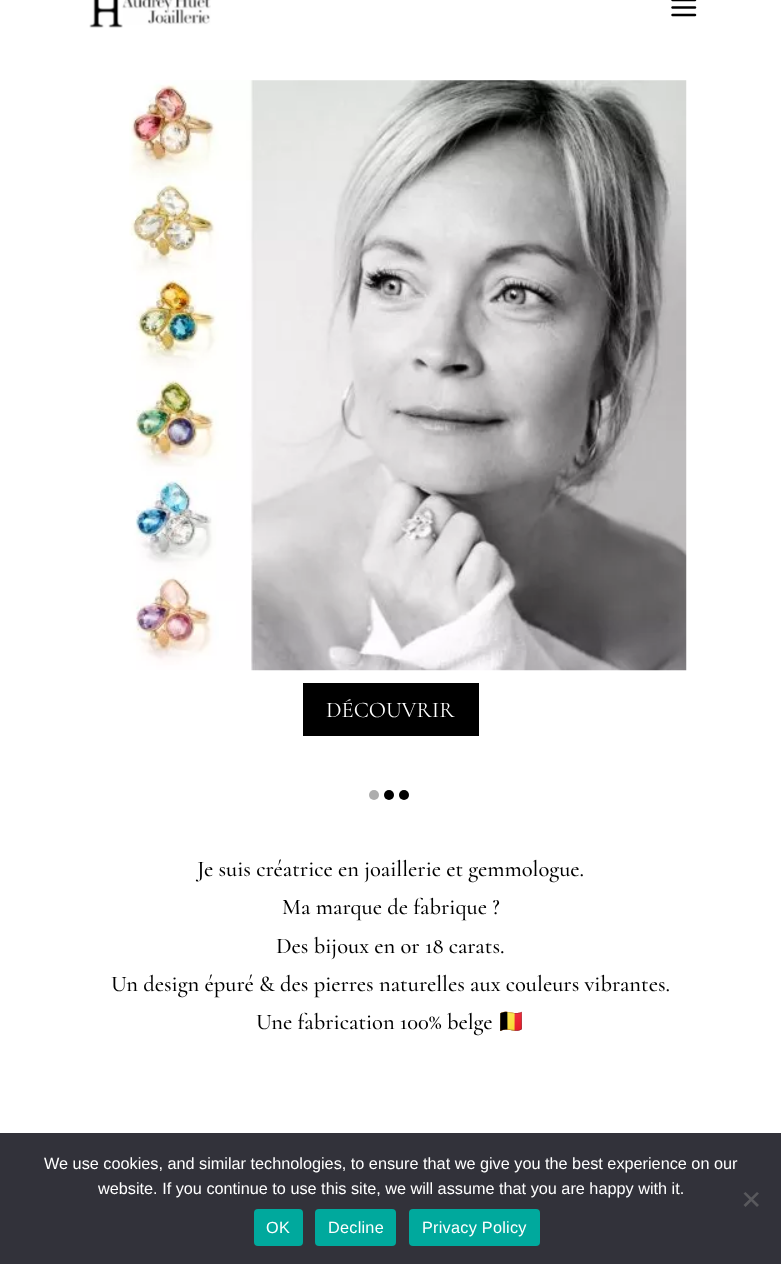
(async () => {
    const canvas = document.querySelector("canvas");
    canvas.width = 781;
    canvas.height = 1264;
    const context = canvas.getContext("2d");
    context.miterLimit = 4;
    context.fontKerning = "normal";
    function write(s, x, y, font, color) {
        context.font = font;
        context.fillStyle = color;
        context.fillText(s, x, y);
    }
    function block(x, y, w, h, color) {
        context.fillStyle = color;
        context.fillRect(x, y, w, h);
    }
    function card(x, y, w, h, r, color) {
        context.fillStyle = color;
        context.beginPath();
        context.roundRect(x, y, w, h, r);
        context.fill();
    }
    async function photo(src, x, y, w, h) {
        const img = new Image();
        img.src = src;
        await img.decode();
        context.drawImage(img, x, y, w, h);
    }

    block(0, 0, 781, 1264, "rgb(255, 255, 255)");
    await photo("media/1.png", 89, 0, 122, 28);
    await photo("media/2.png", 671, 0, 26, 17);
    await photo("media/3.png", 129, 80, 558, 591);
    block(303, 683, 176, 53, "rgb(0, 0, 0)");
    write("DÉCOUVRIR", 326, 717, "22.5px Cormorant", "rgb(255, 255, 255)");
    context.fillStyle = "rgb(173, 173, 173)";
    context.beginPath();
    context.arc(374, 795, 5, 0, Math.PI * 2);
    context.fill();
    context.fillStyle = "rgb(0, 0, 0)";
    context.beginPath();
    context.arc(389, 795, 5, 0, Math.PI * 2);
    context.fill();
    context.beginPath();
    context.arc(404, 795, 5, 0, Math.PI * 2);
    context.fill();
    write("Je suis créatrice en joaillerie et gemmologue.", 197, 876, "500 22.5px Cormorant", "rgb(0, 0, 0)");
    write("Ma marque de fabrique ?", 282, 914, "500 22.5px Cormorant", "rgb(0, 0, 0)");
    write("Des bijoux en or 18 carats.", 276, 953, "500 22.5px Cormorant", "rgb(0, 0, 0)");
    write("Un design épuré & des pierres naturelles aux couleurs vibrantes.", 111, 991, "500 22.5px Cormorant", "rgb(0, 0, 0)");
    write("Une fabrication 100% belge", 256, 1029, "500 22.5px Cormorant", "rgb(0, 0, 0)");
    write("🇧🇪", 497, 1029, "22.5px Noto Color Emoji", "rgb(0, 0, 0)");
    block(0, 1133, 781, 131, "rgb(50, 50, 58)");
    write("We use cookies, and similar technologies, to ensure that we give you the best experience on our", 44, 1169, "16.25px Liberation Sans", "rgb(255, 255, 255)");
    write("website. If you continue to use this site, we will assume that you are happy with it.", 98, 1194, "16.25px Liberation Sans", "rgb(255, 255, 255)");
    context.fillStyle = "rgb(89, 89, 93)";
    context.beginPath();
    context.moveTo(757, 1192);
    context.lineTo(759, 1193.5);
    context.lineTo(745.5, 1207);
    context.lineTo(743.5, 1205);
    context.closePath();
    context.fill();
    context.beginPath();
    context.moveTo(743.5, 1193.5);
    context.lineTo(745.5, 1192);
    context.lineTo(759, 1205);
    context.lineTo(757, 1207);
    context.closePath();
    context.fill();
    card(254, 1209, 49, 37, 4, "rgb(0, 169, 157)");
    context.letterSpacing = "0.25px";
    write("OK", 266, 1233, "16.25px Liberation Sans", "rgb(255, 255, 255)");
    card(315, 1209, 81, 37, 4, "rgb(0, 169, 157)");
    write("Decline", 328, 1233, "16.25px Liberation Sans", "rgb(255, 255, 255)");
    card(409, 1209, 131, 37, 4, "rgb(0, 169, 157)");
    write("Privacy Policy", 422, 1233, "16.25px Liberation Sans", "rgb(255, 255, 255)");
})();
